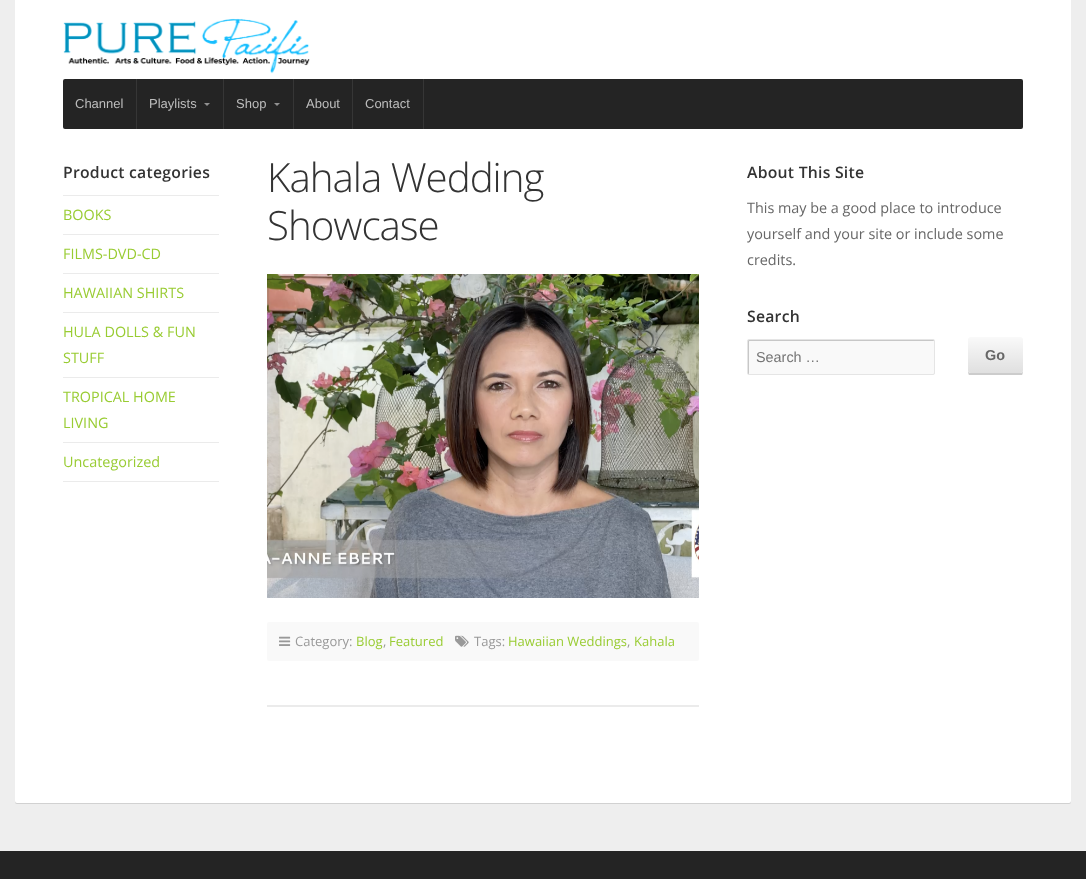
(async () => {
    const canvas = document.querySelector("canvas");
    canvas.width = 1086;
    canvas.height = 879;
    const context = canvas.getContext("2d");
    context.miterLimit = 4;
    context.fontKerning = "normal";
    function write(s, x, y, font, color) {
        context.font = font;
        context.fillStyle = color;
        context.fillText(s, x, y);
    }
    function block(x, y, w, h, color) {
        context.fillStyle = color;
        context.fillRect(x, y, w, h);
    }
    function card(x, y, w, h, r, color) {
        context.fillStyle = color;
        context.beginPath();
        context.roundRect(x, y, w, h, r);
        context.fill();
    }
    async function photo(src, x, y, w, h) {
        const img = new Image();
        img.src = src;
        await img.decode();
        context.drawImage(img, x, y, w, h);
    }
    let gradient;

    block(0, 0, 1086, 879, "rgb(238, 238, 238)");
    context.fillStyle = "rgba(0, 0, 0, 0.12)";
    context.filter = "blur(0.5px)";
    context.beginPath();
    context.roundRect(15, -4, 1056, 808, 2);
    context.fill();
    context.filter = "none";
    card(15, -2, 1056, 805, 2, "rgb(255, 255, 255)");
    await photo("media/1.png", 63, 18, 247, 56);
    card(63, 79, 960, 50, 2, "rgb(36, 36, 36)");
    block(136, 79, 1, 50, "rgb(54, 54, 54)");
    write("Channel", 75, 108, "13px Liberation Sans", "rgb(189, 189, 189)");
    block(223, 79, 1, 50, "rgb(54, 54, 54)");
    write("Playlists", 149, 108, "13px Liberation Sans", "rgb(189, 189, 189)");
    context.fillStyle = "rgb(146, 146, 146)";
    context.beginPath();
    context.moveTo(204, 103);
    context.lineTo(210, 103);
    context.lineTo(207, 106);
    context.closePath();
    context.fill();
    block(293, 79, 1, 50, "rgb(54, 54, 54)");
    write("Shop", 236, 108, "13px Liberation Sans", "rgb(189, 189, 189)");
    context.fillStyle = "rgb(146, 146, 146)";
    context.beginPath();
    context.moveTo(274, 103);
    context.lineTo(280, 103);
    context.lineTo(277, 106);
    context.closePath();
    context.fill();
    block(352, 79, 1, 50, "rgb(54, 54, 54)");
    write("About", 306, 108, "13px Liberation Sans", "rgb(189, 189, 189)");
    block(423, 79, 1, 50, "rgb(54, 54, 54)");
    write("Contact", 365, 108, "13px Liberation Sans", "rgb(189, 189, 189)");
    context.letterSpacing = "0.25px";
    write("Product categories", 63, 178, "600 15.75px Open Sans", "rgb(51, 51, 51)");
    block(63, 195, 156, 1, "rgb(235, 235, 235)");
    context.letterSpacing = "0px";
    write("BOOKS", 63, 220, "14.4px Open Sans", "rgb(153, 204, 51)");
    block(63, 234, 156, 1, "rgb(235, 235, 235)");
    write("FILMS-DVD-CD", 63, 259, "14.4px Open Sans", "rgb(153, 204, 51)");
    block(63, 273, 156, 1, "rgb(235, 235, 235)");
    write("HAWAIIAN SHIRTS", 63, 298, "14.4px Open Sans", "rgb(153, 204, 51)");
    block(63, 312, 156, 1, "rgb(235, 235, 235)");
    write("HULA DOLLS & FUN", 63, 337, "14.4px Open Sans", "rgb(153, 204, 51)");
    write("STUFF", 63, 363, "14.4px Open Sans", "rgb(153, 204, 51)");
    block(63, 377, 156, 1, "rgb(235, 235, 235)");
    write("TROPICAL HOME", 63, 402, "14.4px Open Sans", "rgb(153, 204, 51)");
    write("LIVING", 63, 428, "14.4px Open Sans", "rgb(153, 204, 51)");
    block(63, 442, 156, 1, "rgb(235, 235, 235)");
    block(63, 481, 156, 1, "rgb(235, 235, 235)");
    write("Uncategorized", 63, 467, "14.4px Open Sans", "rgb(153, 204, 51)");
    block(267, 705, 432, 2, "rgb(235, 235, 235)");
    context.letterSpacing = "-1px";
    write("Kahala Wedding", 267, 192, "300 40.25px Open Sans", "rgb(51, 51, 51)");
    write("Showcase", 267, 240, "300 40.25px Open Sans", "rgb(51, 51, 51)");
    await photo("media/2.png", 267, 274, 432, 324);
    card(267, 622, 432, 39, 2, "rgb(249, 249, 249)");
    await photo("media/3.png", 279, 636, 12, 10);
    context.letterSpacing = "0px";
    write("Category:", 295, 646, "13px Open Sans", "rgb(153, 153, 153)");
    write("Blog", 356, 646, "13px Open Sans", "rgb(153, 204, 51)");
    write(",", 383, 646, "13px Open Sans", "rgb(153, 153, 153)");
    write("Featured", 389, 646, "13px Open Sans", "rgb(153, 204, 51)");
    await photo("media/4.png", 455, 635, 14, 12);
    write("Tags:", 474, 646, "13px Open Sans", "rgb(153, 153, 153)");
    write("Hawaiian Weddings", 508, 646, "13px Open Sans", "rgb(153, 204, 51)");
    write(",", 627, 646, "13px Open Sans", "rgb(153, 153, 153)");
    write("Kahala", 634, 646, "13px Open Sans", "rgb(153, 204, 51)");
    context.letterSpacing = "0.25px";
    write("About This Site", 747, 178, "600 15.75px Open Sans", "rgb(51, 51, 51)");
    context.letterSpacing = "0px";
    write("This may be a good place to introduce", 747, 213, "14.4px Open Sans", "rgb(102, 102, 102)");
    write("yourself and your site or include some", 747, 239, "14.4px Open Sans", "rgb(102, 102, 102)");
    write("credits.", 747, 265, "14.4px Open Sans", "rgb(102, 102, 102)");
    context.letterSpacing = "0.25px";
    write("Search", 747, 322, "600 15.75px Open Sans", "rgb(51, 51, 51)");
    card(747, 339, 188, 36, 2, "rgb(249, 249, 249)");
    context.fillStyle = "rgb(199, 199, 199)";
    context.beginPath();
    context.moveTo(750, 341);
    context.lineTo(934, 341);
    context.bezierCurveTo(934, 340, 934, 340, 933, 340);
    context.lineTo(749, 340);
    context.bezierCurveTo(748, 340, 748, 340, 748, 341);
    context.lineTo(748, 373);
    context.bezierCurveTo(748, 374, 748, 374, 749, 374);
    context.lineTo(749, 342);
    context.bezierCurveTo(749, 341, 749, 341, 750, 341);
    context.closePath();
    context.fill();
    context.beginPath();
    context.roundRect(747.5, 339.5, 187, 35, 1.5);
    context.strokeStyle = "rgb(229, 229, 229)";
    context.stroke();
    context.letterSpacing = "0px";
    write("Search …", 756, 362, "14.4px Liberation Sans", "rgb(117, 117, 117)");
    context.save();
    context.beginPath();
    context.rect(747, 297, 276, 78);
    context.clip();
    context.fillStyle = "rgb(204, 204, 204)";
    context.beginPath();
    context.moveTo(968, 370);
    context.bezierCurveTo(968, 378, 971, 376, 979, 376);
    context.lineTo(1012, 376);
    context.bezierCurveTo(1020, 376, 1023, 378, 1023, 370);
    context.bezierCurveTo(1023, 372, 1022, 373, 1020, 373);
    context.lineTo(971, 373);
    context.bezierCurveTo(969, 373, 968, 372, 968, 370);
    context.closePath();
    context.fill();
    context.restore();
    card(968, 337, 55, 36, 3, "rgb(249, 249, 249)");
    gradient = context.createLinearGradient(996, 337, 996, 373);
    gradient.addColorStop(0, "rgba(0, 0, 0, 0)");
    gradient.addColorStop(1, "rgba(0, 0, 0, 0.1)");
    context.fillStyle = gradient;
    context.beginPath();
    context.roundRect(968, 337, 55, 36, 3);
    context.fill();
    write("Go", 985, 360, "bold 14.4px Liberation Sans", "rgb(102, 102, 102)");
    block(0, 851, 1086, 28, "rgb(36, 36, 36)");
})();
